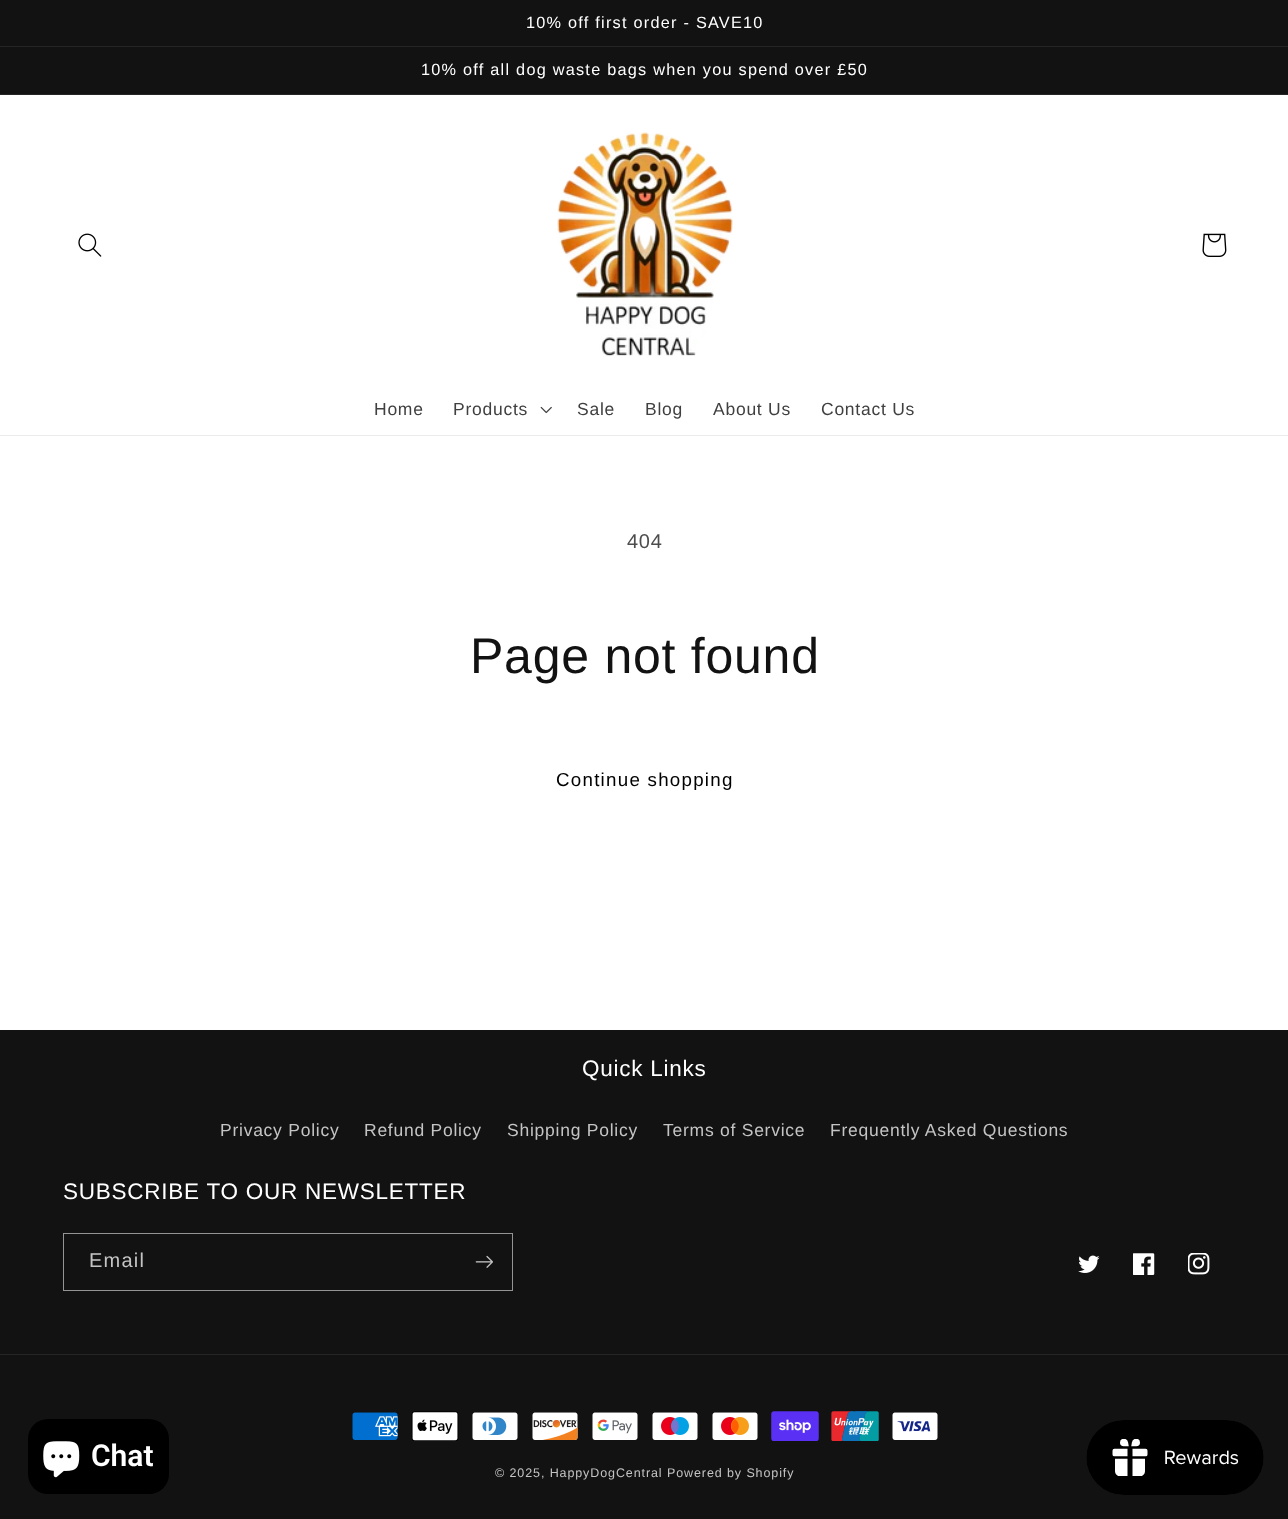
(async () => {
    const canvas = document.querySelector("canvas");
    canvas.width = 1288;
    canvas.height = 1519;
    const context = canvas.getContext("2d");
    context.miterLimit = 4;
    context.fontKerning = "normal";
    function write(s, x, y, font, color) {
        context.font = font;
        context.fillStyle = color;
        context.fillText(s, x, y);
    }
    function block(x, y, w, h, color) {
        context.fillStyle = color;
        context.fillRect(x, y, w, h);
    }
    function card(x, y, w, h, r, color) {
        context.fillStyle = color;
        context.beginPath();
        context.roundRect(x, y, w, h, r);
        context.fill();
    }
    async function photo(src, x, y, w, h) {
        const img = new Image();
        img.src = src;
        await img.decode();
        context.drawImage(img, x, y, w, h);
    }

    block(0, 0, 1288, 1519, "rgb(255, 255, 255)");
    block(0, 0, 1288, 94, "rgb(18, 18, 18)");
    block(0, 46, 1288, 1, "rgb(37, 37, 37)");
    context.letterSpacing = "1.25px";
    write("10% off first order - SAVE10", 526, 28, "16.25px Liberation Sans", "rgb(255, 255, 255)");
    block(0, 94, 1288, 1, "rgb(37, 37, 37)");
    write("10% off all dog waste bags when you spend over £50", 421, 75, "16.25px Liberation Sans", "rgb(255, 255, 255)");
    block(0, 435, 1288, 1, "rgb(235, 235, 235)");
    await photo("media/1.png", 78, 233, 24, 24);
    await photo("media/2.png", 557, 132, 176, 225);
    await photo("media/3.png", 1202, 233, 25, 24);
    context.letterSpacing = "0.75px";
    write("Home", 374, 415, "17.5px Liberation Sans", "rgb(64, 64, 64)");
    write("Products", 453, 415, "17.5px Liberation Sans", "rgb(64, 64, 64)");
    await photo("media/4.png", 540, 406, 12, 8);
    write("Sale", 577, 415, "17.5px Liberation Sans", "rgb(64, 64, 64)");
    write("Blog", 645, 415, "17.5px Liberation Sans", "rgb(64, 64, 64)");
    write("About Us", 713, 415, "17.5px Liberation Sans", "rgb(64, 64, 64)");
    write("Contact Us", 821, 415, "17.5px Liberation Sans", "rgb(64, 64, 64)");
    write("404", 627, 548, "20px Liberation Sans", "rgb(77, 77, 77)");
    write("Page not found", 470, 673, "50px Liberation Sans", "rgb(18, 18, 18)");
    context.letterSpacing = "1.25px";
    write("Continue shopping", 556, 786, "18.75px Liberation Sans", "rgb(0, 0, 0)");
    block(0, 1030, 1288, 489, "rgb(18, 18, 18)");
    context.letterSpacing = "0.75px";
    write("Quick Links", 582, 1076, "22.5px Liberation Sans", "rgb(255, 255, 255)");
    write("Privacy Policy", 220, 1136, "17.5px Liberation Sans", "rgb(196, 196, 196)");
    write("Refund Policy", 364, 1136, "17.5px Liberation Sans", "rgb(196, 196, 196)");
    write("Shipping Policy", 507, 1136, "17.5px Liberation Sans", "rgb(196, 196, 196)");
    write("Terms of Service", 663, 1136, "17.5px Liberation Sans", "rgb(196, 196, 196)");
    write("Frequently Asked Questions", 830, 1136, "17.5px Liberation Sans", "rgb(196, 196, 196)");
    write("SUBSCRIBE TO OUR NEWSLETTER", 63, 1199, "22.5px Liberation Sans", "rgb(255, 255, 255)");
    context.strokeStyle = "rgb(148, 148, 148)";
    context.strokeRect(63.5, 1233.5, 449, 57);
    context.letterSpacing = "1.25px";
    write("Email", 89, 1267, "20px Liberation Sans", "rgb(196, 196, 196)");
    await photo("media/5.png", 475, 1255, 18, 13);
    await photo("media/6.png", 1078, 1255, 22, 18);
    await photo("media/7.png", 1133, 1253, 22, 22);
    await photo("media/8.png", 1188, 1253, 22, 22);
    block(0, 1354, 1288, 1, "rgb(37, 37, 37)");
    await photo("media/9.png", 352, 1412, 46, 28);
    await photo("media/10.png", 411, 1411, 48, 30);
    await photo("media/11.png", 472, 1412, 46, 28);
    await photo("media/12.png", 532, 1412, 46, 28);
    await photo("media/13.png", 592, 1412, 46, 28);
    await photo("media/14.png", 652, 1412, 46, 28);
    await photo("media/15.png", 712, 1412, 46, 28);
    await photo("media/16.png", 771, 1411, 48, 30);
    await photo("media/17.png", 831, 1411, 48, 30);
    await photo("media/18.png", 892, 1412, 46, 28);
    context.letterSpacing = "0.9px";
    write("© 2025, HappyDogCentral", 495, 1477, "12.5px Liberation Sans", "rgb(196, 196, 196)");
    write("Powered by Shopify", 667, 1477, "12.5px Liberation Sans", "rgb(196, 196, 196)");
    await photo("media/19.png", 1086, 1420, 178, 75);
    card(28, 1419, 141, 75, 20, "rgb(0, 0, 0)");
    await photo("media/20.png", 43, 1441, 37, 37);
    context.letterSpacing = "0px";
    write("Chat", 91, 1466, "600 30px Roboto", "rgb(255, 255, 255)");
})();
